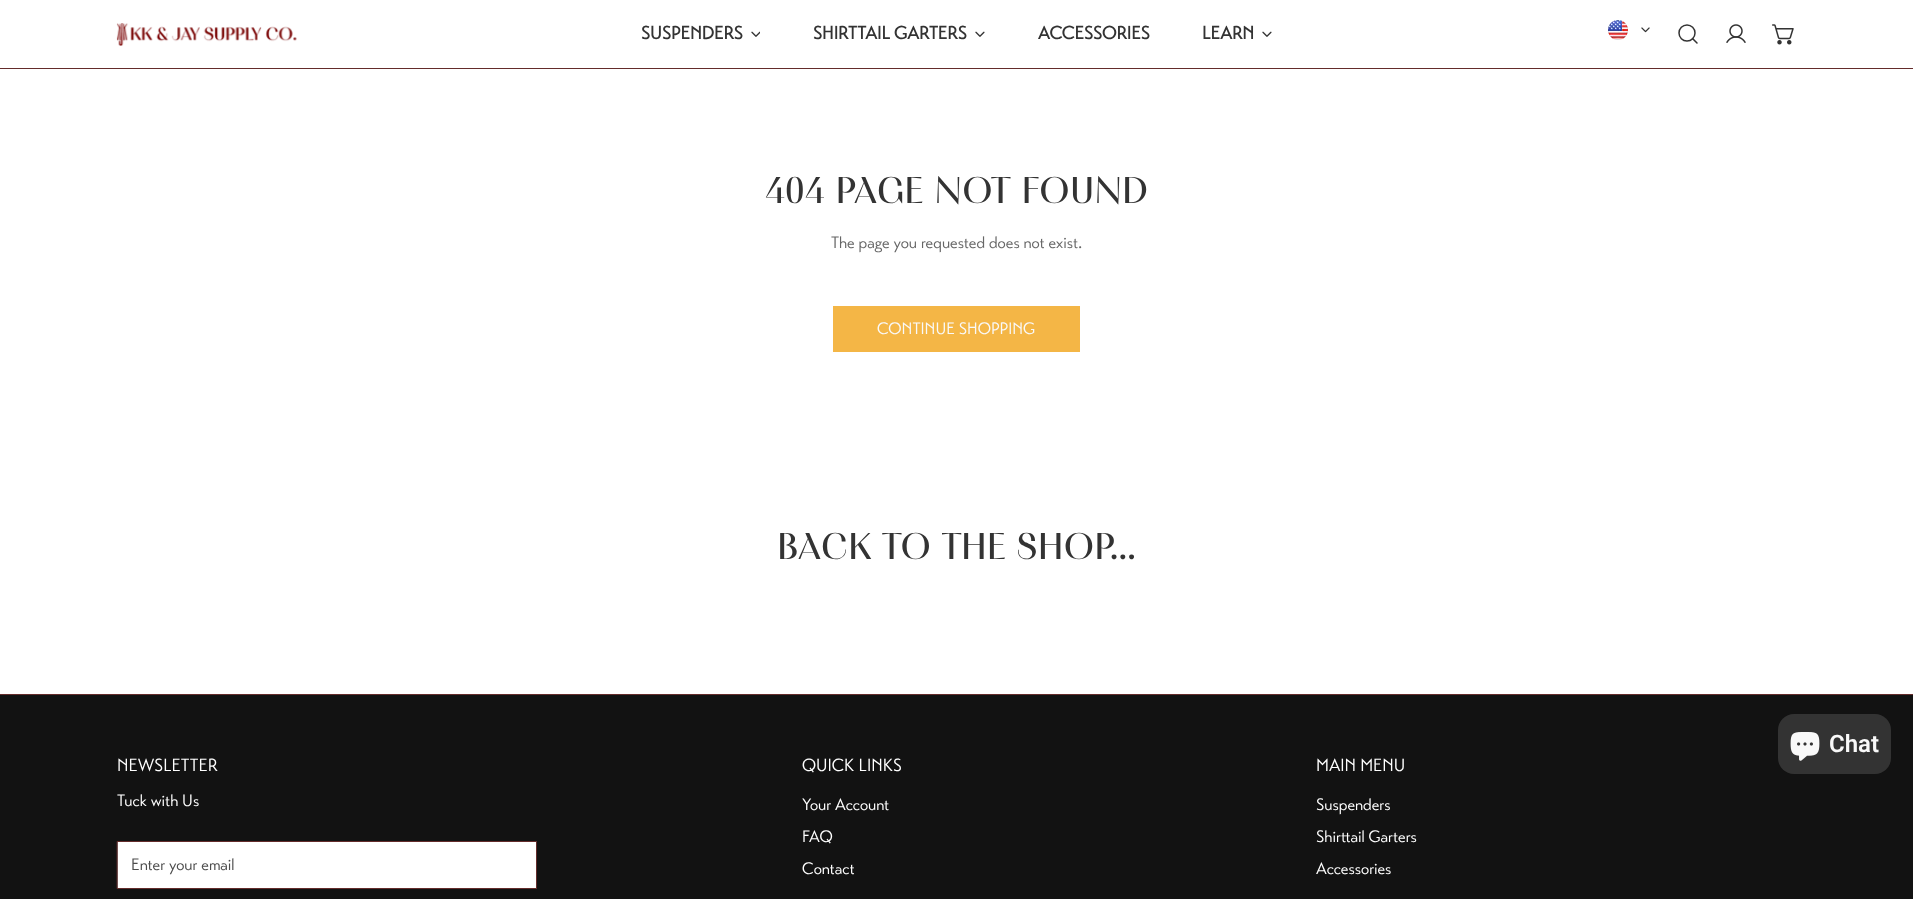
(async () => {
    const canvas = document.querySelector("canvas");
    canvas.width = 1913;
    canvas.height = 899;
    const context = canvas.getContext("2d");
    context.miterLimit = 4;
    context.fontKerning = "normal";
    function write(s, x, y, font, color) {
        context.font = font;
        context.fillStyle = color;
        context.fillText(s, x, y);
    }
    function block(x, y, w, h, color) {
        context.fillStyle = color;
        context.fillRect(x, y, w, h);
    }
    function card(x, y, w, h, r, color) {
        context.fillStyle = color;
        context.beginPath();
        context.roundRect(x, y, w, h, r);
        context.fill();
    }
    async function photo(src, x, y, w, h) {
        const img = new Image();
        img.src = src;
        await img.decode();
        context.drawImage(img, x, y, w, h);
    }

    block(0, 0, 1913, 899, "rgb(255, 255, 255)");
    block(0, 68, 1913, 1, "rgb(100, 44, 43)");
    await photo("media/1.png", 116, 23, 181, 23);
    write("SUSPENDERS", 641, 39, "bold 18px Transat", "rgb(51, 51, 51)");
    await photo("media/2.png", 751, 31, 9, 6);
    write("SHIRTTAIL GARTERS", 813, 39, "bold 18px Transat", "rgb(51, 51, 51)");
    await photo("media/3.png", 975, 31, 10, 6);
    write("ACCESSORIES", 1038, 39, "bold 18px Transat", "rgb(51, 51, 51)");
    write("LEARN", 1202, 39, "bold 18px Transat", "rgb(51, 51, 51)");
    await photo("media/3.png", 1262, 31, 10, 6);
    await photo("media/4.png", 1608, 20, 20, 20);
    await photo("media/5.png", 1641, 27, 9, 6);
    context.beginPath();
    context.arc(1687, 33, 8, 0, Math.PI * 2);
    context.strokeStyle = "rgb(51, 51, 51)";
    context.lineWidth = 1.5;
    context.stroke();
    context.beginPath();
    context.moveTo(1697, 43);
    context.lineTo(1692.5, 38.5);
    context.lineCap = "round";
    context.lineJoin = "round";
    context.stroke();
    await photo("media/6.png", 1726, 24, 20, 19);
    await photo("media/7.png", 1772, 24, 22, 21);
    write("404 PAGE NOT FOUND", 765, 203, "37.4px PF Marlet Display", "rgb(51, 51, 51)");
    write("The page you requested does not exist.", 831, 248, "16.5px Transat", "rgb(102, 102, 102)");
    block(833, 306, 247, 46, "rgb(244, 182, 70)");
    write("CONTINUE SHOPPING", 877, 334, "16.5px Transat", "rgb(249, 249, 249)");
    write("BACK TO THE SHOP...", 777, 559, "37.4px PF Marlet Display", "rgb(51, 51, 51)");
    block(0, 694, 1913, 1, "rgb(100, 44, 43)");
    block(0, 695, 1913, 204, "rgb(18, 18, 18)");
    write("NEWSLETTER", 117, 771, "17.5px Transat", "rgb(255, 255, 255)");
    write("Tuck with Us", 117, 806, "16.5px Transat", "rgb(255, 255, 255)");
    context.beginPath();
    context.rect(117.5, 841.5, 419, 47);
    context.fill();
    context.strokeStyle = "rgb(100, 44, 43)";
    context.lineWidth = 1;
    context.lineJoin = "miter";
    context.stroke();
    write("Enter your email", 131, 870, "16.5px Transat", "rgb(77, 77, 77)");
    write("QUICK LINKS", 802, 771, "17.5px Transat", "rgb(255, 255, 255)");
    write("Your Account", 802, 810, "16.5px Transat", "rgb(255, 255, 255)");
    write("FAQ", 802, 842, "16.5px Transat", "rgb(255, 255, 255)");
    write("Contact", 802, 874, "16.5px Transat", "rgb(255, 255, 255)");
    write("MAIN MENU", 1316, 771, "17.5px Transat", "rgb(255, 255, 255)");
    write("Suspenders", 1316, 810, "16.5px Transat", "rgb(255, 255, 255)");
    write("Shirttail Garters", 1316, 842, "16.5px Transat", "rgb(255, 255, 255)");
    write("Accessories", 1316, 874, "16.5px Transat", "rgb(255, 255, 255)");
    card(1778, 714, 113, 60, 16, "rgb(51, 51, 51)");
    await photo("media/8.png", 1790, 732, 30, 29);
    write("Chat", 1829, 752, "600 24px Roboto", "rgb(249, 249, 249)");
})();
